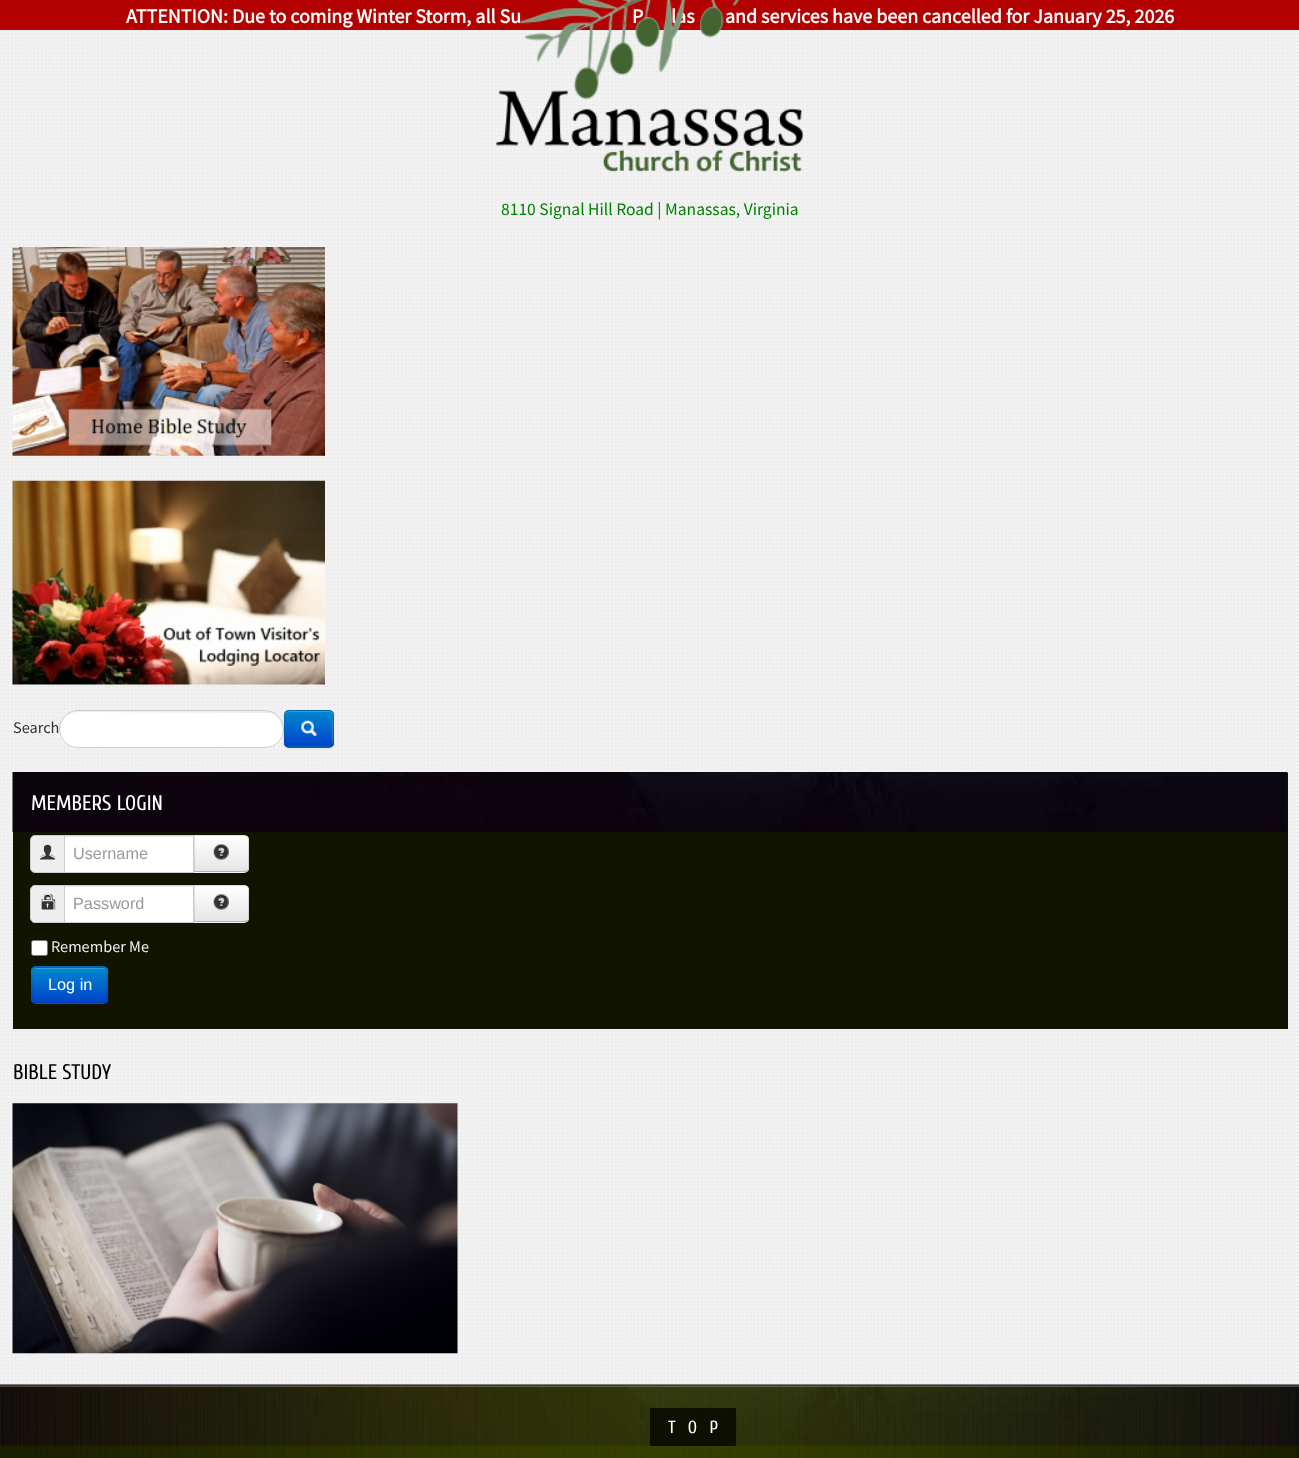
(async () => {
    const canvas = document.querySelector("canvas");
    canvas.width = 1299;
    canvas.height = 1458;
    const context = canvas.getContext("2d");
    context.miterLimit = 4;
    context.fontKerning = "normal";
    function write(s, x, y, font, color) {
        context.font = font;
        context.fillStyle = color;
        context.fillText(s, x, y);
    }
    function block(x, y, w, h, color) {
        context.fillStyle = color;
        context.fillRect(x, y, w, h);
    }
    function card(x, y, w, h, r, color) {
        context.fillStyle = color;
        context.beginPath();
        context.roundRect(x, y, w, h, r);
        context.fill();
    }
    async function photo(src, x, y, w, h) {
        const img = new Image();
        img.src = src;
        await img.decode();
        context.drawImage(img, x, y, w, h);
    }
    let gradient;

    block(0, 0, 1299, 1458, "rgb(255, 255, 255)");
    await photo("media/1.png", 0, 30, 1299, 1355);
    block(0, 0, 1299, 30, "rgb(179, 0, 0)");
    write("ATTENTION: Due to coming Winter Storm, all Su", 126, 23, "bold 20px Source Sans Pro", "rgb(255, 255, 255)");
    write("P", 632, 23, "bold 20px Source Sans Pro", "rgb(255, 255, 255)");
    write("las", 671, 23, "bold 20px Source Sans Pro", "rgb(255, 255, 255)");
    write("and services have been cancelled for January 25, 2026", 725, 23, "bold 20px Source Sans Pro", "rgb(255, 255, 255)");
    await photo("media/2.png", 496, 0, 308, 173);
    write("8110 Signal Hill Road | Manassas, Virginia", 501, 215, "17.5px Source Sans Pro", "rgb(0, 128, 0)");
    await photo("media/3.png", 12, 247, 313, 209);
    await photo("media/4.png", 12, 480, 313, 205);
    write("Search", 13, 733, "16.25px Source Sans Pro", "rgb(51, 51, 51)");
    card(59, 710, 225, 38, 19, "rgb(255, 255, 255)");
    context.fillStyle = "rgb(236, 236, 236)";
    context.beginPath();
    context.moveTo(78, 712);
    context.lineTo(269, 713);
    context.bezierCurveTo(280, 715, 284, 727, 281, 736);
    context.bezierCurveTo(282, 734, 283, 731, 283, 728);
    context.bezierCurveTo(283, 719, 275, 711, 266, 711);
    context.lineTo(78, 711);
    context.bezierCurveTo(68, 711, 60, 719, 60, 728);
    context.lineTo(61, 734);
    context.bezierCurveTo(59, 724, 65, 712, 78, 712);
    context.closePath();
    context.fill();
    context.beginPath();
    context.roundRect(59.5, 710.5, 224, 37, 18.5);
    context.strokeStyle = "rgb(204, 204, 204)";
    context.stroke();
    context.fillStyle = "rgba(0, 0, 0, 0.05)";
    context.filter = "blur(1px)";
    context.beginPath();
    context.roundRect(284, 711, 50, 38, 5);
    context.fill();
    context.filter = "none";
    card(284, 710, 50, 38, 5, "rgb(0, 109, 204)");
    context.save();
    context.beginPath();
    context.roundRect(284, 710, 50, 38, 5);
    context.clip();
    gradient = context.createLinearGradient(309, 711, 309, 746);
    gradient.addColorStop(0, "rgb(0, 136, 204)");
    gradient.addColorStop(1, "rgb(0, 68, 204)");
    context.fillStyle = gradient;
    context.fillRect(284, 711, 50, 35);
    context.restore();
    context.fillStyle = "rgba(255, 255, 255, 0.2)";
    context.beginPath();
    context.moveTo(289, 712);
    context.lineTo(330, 712);
    context.bezierCurveTo(334, 713, 332, 723, 332, 725);
    context.lineTo(332, 745);
    context.bezierCurveTo(334, 742, 333, 732, 333, 728);
    context.bezierCurveTo(333, 709, 336, 711, 316, 711);
    context.lineTo(296, 711);
    context.bezierCurveTo(291, 711, 285, 710, 285, 716);
    context.bezierCurveTo(285, 714, 287, 712, 289, 712);
    context.closePath();
    context.fill();
    context.beginPath();
    context.moveTo(332, 745.5);
    context.bezierCurveTo(331, 746.5, 330, 747, 329, 747);
    context.lineTo(289, 747);
    context.bezierCurveTo(287.5, 747, 286.5, 746.5, 285.5, 745.5);
    context.strokeStyle = "rgba(0, 0, 0, 0.25)";
    context.lineWidth = 1.2;
    context.stroke();
    context.beginPath();
    context.moveTo(285.5, 745.5);
    context.bezierCurveTo(285, 745, 284.5, 743.5, 284.5, 742.5);
    context.lineTo(284.5, 715);
    context.bezierCurveTo(284.5, 714, 285, 712.5, 285.5, 712);
    context.bezierCurveTo(286.5, 711, 287.5, 710.5, 289, 710.5);
    context.lineTo(329, 710.5);
    context.bezierCurveTo(330, 710.5, 331, 711, 332, 712);
    context.bezierCurveTo(332.5, 712.5, 333, 714, 333, 715);
    context.lineTo(333, 742.5);
    context.bezierCurveTo(333, 743.5, 332.5, 745, 332, 745.5);
    context.strokeStyle = "rgba(0, 0, 0, 0.1)";
    context.stroke();
    await photo("media/5.png", 301, 720, 17, 17);
    block(13, 773, 1275, 256, "rgb(18, 20, 2)");
    await photo("media/6.png", 12, 772, 1276, 60);
    write("MEMBERS LOGIN", 31, 810, "21px Cuprum", "rgb(255, 255, 255)");
    context.fillStyle = "rgb(238, 238, 238)";
    context.beginPath();
    context.roundRect(30.5, 835.5, 34, 37, [4.5, 0, 0, 4.5]);
    context.fill();
    context.strokeStyle = "rgb(204, 204, 204)";
    context.lineWidth = 1;
    context.stroke();
    await photo("media/7.png", 39, 844, 17, 16);
    await photo("media/8.png", 39, 844, 17, 16);
    block(65, 837, 128, 35, "rgb(255, 255, 255)");
    block(65, 836, 128, 1, "rgb(236, 236, 236)");
    context.strokeRect(64.5, 835.5, 129, 37);
    write("Username", 73, 859, "16.25px Liberation Sans", "rgb(153, 153, 153)");
    context.fillStyle = "rgb(245, 245, 245)";
    context.beginPath();
    context.roundRect(194, 835, 55, 38, [0, 5, 5, 0]);
    context.fill();
    context.save();
    context.beginPath();
    context.roundRect(194, 835, 55, 38, [0, 5, 5, 0]);
    context.clip();
    gradient = context.createLinearGradient(221, 836, 221, 871);
    gradient.addColorStop(0, "rgb(255, 255, 255)");
    gradient.addColorStop(1, "rgb(230, 230, 230)");
    context.fillStyle = gradient;
    context.fillRect(194, 836, 55, 35);
    context.restore();
    context.fillStyle = "rgba(0, 0, 0, 0.1)";
    context.beginPath();
    context.moveTo(194, 835);
    context.lineTo(195, 836);
    context.lineTo(244, 836);
    context.bezierCurveTo(245, 836, 246, 836, 247, 837);
    context.lineTo(247, 836);
    context.bezierCurveTo(247, 835, 245, 835, 244, 835);
    context.closePath();
    context.fill();
    context.beginPath();
    context.moveTo(249, 869);
    context.lineTo(247.5, 871);
    context.lineTo(246.5, 870.5);
    context.bezierCurveTo(247.5, 870, 248, 869, 248, 868);
    context.lineTo(248, 840);
    context.bezierCurveTo(248, 839, 247.5, 838, 246.5, 837);
    context.lineTo(247.5, 836.5);
    context.lineTo(249, 838.5);
    context.closePath();
    context.fill();
    context.fillStyle = "rgb(179, 179, 179)";
    context.beginPath();
    context.moveTo(247, 871);
    context.bezierCurveTo(246, 872, 245, 872, 244, 872);
    context.lineTo(194, 872);
    context.lineTo(195, 871);
    context.lineTo(244, 871);
    context.lineTo(247, 870);
    context.closePath();
    context.fill();
    context.fillStyle = "rgba(0, 0, 0, 0.1)";
    context.beginPath();
    context.moveTo(194, 835);
    context.lineTo(194, 872);
    context.lineTo(195, 871);
    context.lineTo(195, 836);
    context.closePath();
    context.fill();
    await photo("media/9.png", 213, 844, 16, 16);
    context.fillStyle = "rgb(238, 238, 238)";
    context.beginPath();
    context.roundRect(30.5, 885.5, 34, 37, [4.5, 0, 0, 4.5]);
    context.fill();
    context.stroke();
    await photo("media/10.png", 41, 894, 15, 16);
    await photo("media/11.png", 41, 894, 14, 16);
    block(65, 887, 128, 35, "rgb(255, 255, 255)");
    block(65, 886, 128, 1, "rgb(236, 236, 236)");
    context.strokeRect(64.5, 885.5, 129, 37);
    write("Password", 73, 909, "16.25px Liberation Sans", "rgb(153, 153, 153)");
    context.fillStyle = "rgb(245, 245, 245)";
    context.beginPath();
    context.roundRect(194, 885, 55, 38, [0, 5, 5, 0]);
    context.fill();
    context.save();
    context.beginPath();
    context.roundRect(194, 885, 55, 38, [0, 5, 5, 0]);
    context.clip();
    gradient = context.createLinearGradient(221, 886, 221, 921);
    gradient.addColorStop(0, "rgb(255, 255, 255)");
    gradient.addColorStop(1, "rgb(230, 230, 230)");
    context.fillStyle = gradient;
    context.fillRect(194, 886, 55, 35);
    context.restore();
    context.fillStyle = "rgba(0, 0, 0, 0.1)";
    context.beginPath();
    context.moveTo(194, 885);
    context.lineTo(195, 886);
    context.lineTo(244, 886);
    context.bezierCurveTo(245, 886, 246, 886, 247, 887);
    context.lineTo(247, 886);
    context.bezierCurveTo(247, 885, 245, 885, 244, 885);
    context.closePath();
    context.fill();
    context.beginPath();
    context.moveTo(249, 919);
    context.lineTo(247.5, 921);
    context.lineTo(246.5, 920.5);
    context.bezierCurveTo(247.5, 920, 248, 919, 248, 918);
    context.lineTo(248, 890);
    context.bezierCurveTo(248, 889, 247.5, 888, 246.5, 887);
    context.lineTo(247.5, 886.5);
    context.lineTo(249, 888.5);
    context.closePath();
    context.fill();
    context.fillStyle = "rgb(179, 179, 179)";
    context.beginPath();
    context.moveTo(247, 921);
    context.bezierCurveTo(246, 922, 245, 922, 244, 922);
    context.lineTo(194, 922);
    context.lineTo(195, 921);
    context.lineTo(244, 921);
    context.lineTo(247, 920);
    context.closePath();
    context.fill();
    context.fillStyle = "rgba(0, 0, 0, 0.1)";
    context.beginPath();
    context.moveTo(194, 885);
    context.lineTo(194, 922);
    context.lineTo(195, 921);
    context.lineTo(195, 886);
    context.closePath();
    context.fill();
    await photo("media/9.png", 213, 894, 16, 16);
    context.fillStyle = "rgb(255, 255, 255)";
    context.beginPath();
    context.roundRect(31.5, 940.5, 16, 15, 2);
    context.fill();
    context.strokeStyle = "rgb(118, 118, 118)";
    context.stroke();
    write("Remember Me", 51, 952, "16.25px Source Sans Pro", "rgb(238, 238, 238)");
    card(31, 966, 77, 38, 5, "rgb(0, 109, 204)");
    context.save();
    context.beginPath();
    context.roundRect(31, 966, 77, 38, 5);
    context.clip();
    gradient = context.createLinearGradient(69, 968, 69, 1003);
    gradient.addColorStop(0, "rgb(0, 136, 204)");
    gradient.addColorStop(1, "rgb(0, 68, 204)");
    context.fillStyle = gradient;
    context.fillRect(31, 968, 77, 35);
    context.restore();
    context.fillStyle = "rgb(51, 159, 214)";
    context.beginPath();
    context.moveTo(36, 969);
    context.lineTo(103, 969);
    context.lineTo(106, 970);
    context.bezierCurveTo(105, 969, 104, 968, 103, 968);
    context.lineTo(37, 968);
    context.lineTo(34, 969);
    context.closePath();
    context.fill();
    context.beginPath();
    context.moveTo(105.5, 1002);
    context.lineTo(103, 1003);
    context.lineTo(36, 1003);
    context.lineTo(33, 1002);
    context.strokeStyle = "rgba(0, 0, 0, 0.25)";
    context.lineWidth = 1.2;
    context.stroke();
    context.beginPath();
    context.moveTo(33, 1002);
    context.bezierCurveTo(31, 1000, 32, 996.5, 32, 994);
    context.lineTo(32, 985);
    context.bezierCurveTo(32, 966, 28.5, 967, 47.5, 967);
    context.lineTo(91.5, 967);
    context.bezierCurveTo(110, 967, 107, 966, 107, 985);
    context.lineTo(107, 994);
    context.bezierCurveTo(107, 996.5, 107.5, 1000, 105.5, 1002);
    context.strokeStyle = "rgba(0, 0, 0, 0.1)";
    context.stroke();
    write("Log in", 48, 990, "16.25px Liberation Sans", "rgb(255, 255, 255)");
    write("BIBLE STUDY", 13, 1079, "21px Cuprum", "rgb(0, 0, 0)");
    await photo("media/12.png", 12, 1103, 446, 251);
    block(0, 1445, 1299, 13, "rgb(18, 20, 2)");
    await photo("media/13.png", 0, 1384, 1299, 62);
    block(0, 1386, 1299, 1, "rgba(255, 255, 255, 0.25)");
    block(0, 1385, 1299, 1, "rgb(51, 51, 51)");
    await photo("media/14.png", 0, 1387, 1296, 71);
    await photo("media/15.png", 0, 1385, 1299, 73);
    block(650, 1408, 86, 38, "rgba(0, 0, 0, 0.7)");
    context.letterSpacing = "12.5px";
    write("TOP", 668, 1433, "17.5px Cuprum", "rgb(255, 255, 255)");
})();
